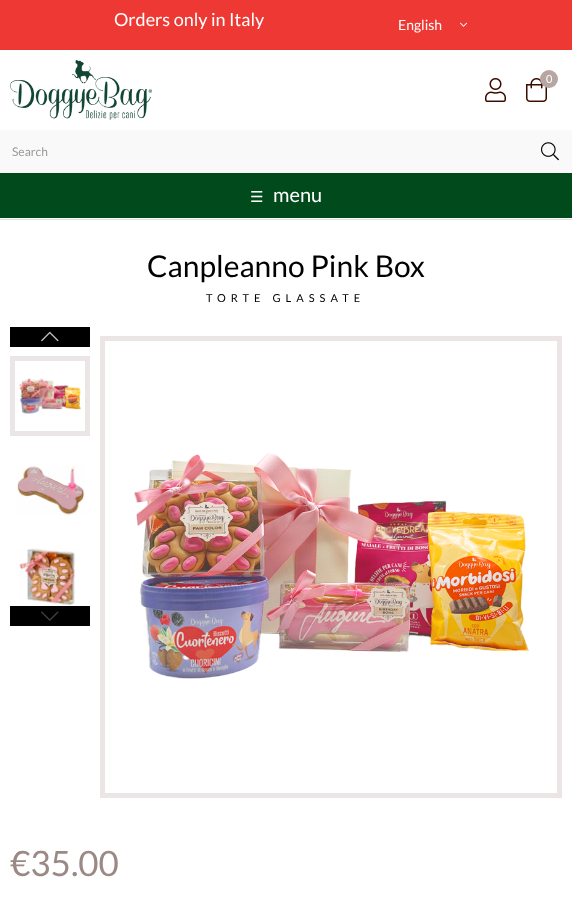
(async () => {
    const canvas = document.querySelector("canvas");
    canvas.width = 572;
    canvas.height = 909;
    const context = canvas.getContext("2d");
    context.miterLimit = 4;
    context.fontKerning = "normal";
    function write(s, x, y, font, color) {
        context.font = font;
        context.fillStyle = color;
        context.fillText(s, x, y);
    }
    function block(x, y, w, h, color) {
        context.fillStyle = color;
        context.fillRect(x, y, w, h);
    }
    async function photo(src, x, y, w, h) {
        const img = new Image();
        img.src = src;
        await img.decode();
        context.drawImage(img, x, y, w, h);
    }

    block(0, 0, 572, 909, "rgb(255, 255, 255)");
    block(0, 0, 572, 50, "rgb(237, 56, 51)");
    write("Orders only in Italy", 114, 26, "18px Lato", "rgb(255, 255, 255)");
    write("English", 398, 30, "14px Lato", "rgb(255, 255, 255)");
    await photo("media/1.png", 460, 22, 7, 5);
    block(0, 218, 572, 1, "rgb(249, 249, 249)");
    await photo("media/2.png", 10, 60, 142, 60);
    await photo("media/3.png", 485, 78, 21, 24);
    await photo("media/4.png", 526, 78, 21, 24);
    context.fillStyle = "rgb(184, 166, 163)";
    context.beginPath();
    context.arc(549, 79, 9, 0, Math.PI * 2);
    context.fill();
    write("0", 546, 83, "11px Lato", "rgb(255, 255, 255)");
    block(0, 130, 572, 43, "rgb(249, 249, 249)");
    write("Search", 12, 156, "12px Lato", "rgb(153, 153, 153)");
    await photo("media/5.png", 541, 142, 18, 19);
    block(0, 173, 572, 45, "rgb(0, 74, 28)");
    write("☰", 250, 202, "15px DejaVu Sans", "rgb(255, 255, 255)");
    write("menu", 273, 202, "20px Lato", "rgb(255, 255, 255)");
    block(0, 219, 572, 1, "rgb(225, 225, 225)");
    write("Canpleanno Pink Box", 147, 277, "30px Lato", "rgb(0, 0, 0)");
    context.letterSpacing = "5px";
    write("TORTE GLASSATE", 206, 302, "11px Lato", "rgb(0, 0, 0)");
    block(10, 327, 80, 20, "rgb(0, 0, 0)");
    await photo("media/6.png", 41, 331, 18, 11);
    block(10, 606, 80, 20, "rgb(0, 0, 0)");
    await photo("media/7.png", 41, 611, 18, 10);
    context.strokeStyle = "rgb(235, 230, 229)";
    context.lineWidth = 5;
    context.strokeRect(12.5, 358.5, 75, 75);
    await photo("media/8.png", 19, 378, 62, 36);
    await photo("media/9.png", 17, 466, 68, 49);
    await photo("media/10.png", 19, 548, 57, 58);
    context.strokeRect(102.5, 338.5, 457, 457);
    await photo("media/11.png", 134, 453, 396, 226);
    context.letterSpacing = "0px";
    write("€35.00", 10, 876, "35px Lato", "rgb(155, 137, 134)");
})();
